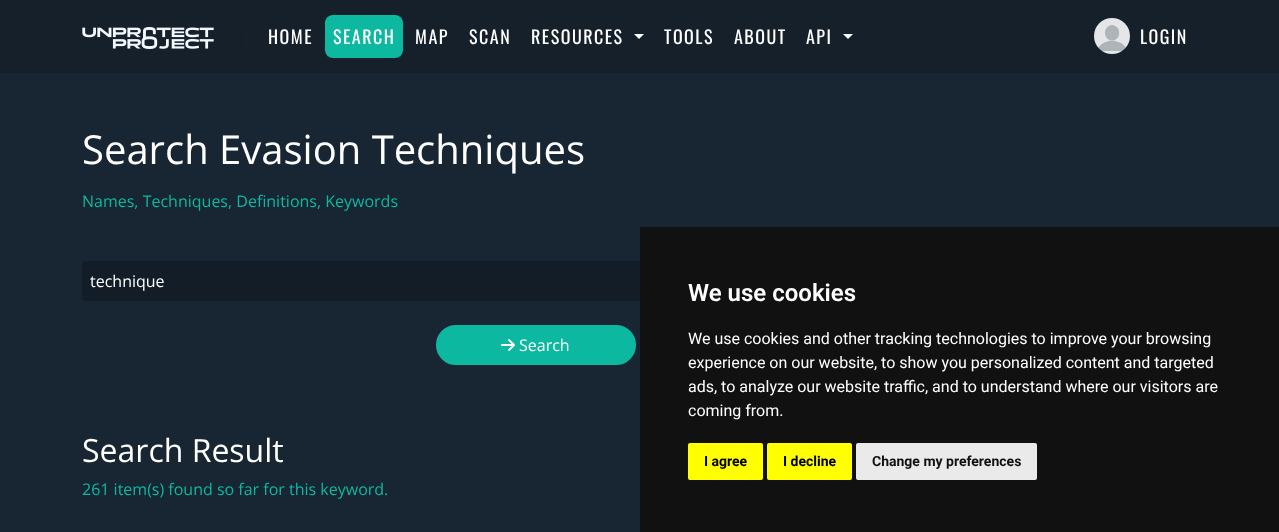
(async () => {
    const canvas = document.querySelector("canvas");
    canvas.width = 1279;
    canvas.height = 532;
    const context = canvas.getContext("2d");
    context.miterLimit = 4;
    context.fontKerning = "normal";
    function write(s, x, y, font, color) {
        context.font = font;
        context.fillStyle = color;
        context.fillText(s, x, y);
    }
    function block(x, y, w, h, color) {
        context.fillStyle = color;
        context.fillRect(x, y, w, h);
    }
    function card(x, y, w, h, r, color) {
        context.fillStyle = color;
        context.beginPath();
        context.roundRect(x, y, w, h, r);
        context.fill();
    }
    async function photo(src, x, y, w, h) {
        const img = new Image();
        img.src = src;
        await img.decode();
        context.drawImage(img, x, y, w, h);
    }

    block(0, 0, 1279, 532, "rgb(24, 37, 50)");
    block(0, 0, 1279, 73, "rgb(21, 32, 43)");
    await photo("media/1.png", 82, 27, 132, 22);
    block(241, 27, 1, 22, "rgb(19, 29, 40)");
    context.letterSpacing = "1.5px";
    write("HOME", 268, 44, "18px Oswald", "rgb(255, 255, 255)");
    card(325, 15, 78, 43, 8, "rgb(13, 184, 160)");
    write("SEARCH", 333, 44, "18px Oswald", "rgb(255, 255, 255)");
    write("MAP", 415, 44, "18px Oswald", "rgb(255, 255, 255)");
    write("SCAN", 469, 44, "18px Oswald", "rgb(255, 255, 255)");
    write("RESOURCES", 531, 44, "18px Oswald", "rgb(255, 255, 255)");
    context.beginPath();
    context.moveTo(634, 34);
    context.lineTo(644, 34);
    context.lineTo(639, 39);
    context.closePath();
    context.fill();
    write("TOOLS", 664, 44, "18px Oswald", "rgb(255, 255, 255)");
    write("ABOUT", 734, 44, "18px Oswald", "rgb(255, 255, 255)");
    write("API", 806, 44, "18px Oswald", "rgb(255, 255, 255)");
    context.beginPath();
    context.moveTo(843, 34);
    context.lineTo(853, 34);
    context.lineTo(848, 39);
    context.closePath();
    context.fill();
    await photo("media/2.png", 1094, 18, 36, 36);
    write("LOGIN", 1140, 44, "18px Oswald", "rgb(255, 255, 255)");
    context.letterSpacing = "0px";
    write("Search Evasion Techniques", 82, 164, "40px Open Sans", "rgb(255, 255, 255)");
    write("Names, Techniques, Definitions, Keywords", 82, 207, "16px Open Sans", "rgb(13, 184, 160)");
    card(82, 261, 1116, 40, 4, "rgb(19, 29, 40)");
    write("technique", 90, 287, "16px Open Sans", "rgb(255, 255, 255)");
    context.fillStyle = "rgb(13, 184, 160)";
    context.beginPath();
    context.roundRect(437, 326, 198, 38, 19);
    context.fill();
    context.strokeStyle = "rgb(13, 184, 160)";
    context.lineWidth = 2;
    context.stroke();
    await photo("media/3.png", 501, 339, 14, 12);
    write("Search", 519, 351, "16px Open Sans", "rgb(255, 255, 255)");
    write("Search Result", 82, 462, "32px Open Sans", "rgb(255, 255, 255)");
    write("261 item(s) found so far for this keyword.", 82, 495, "16px Open Sans", "rgb(13, 184, 160)");
    block(640, 227, 639, 305, "rgb(17, 17, 17)");
    write("We use cookies", 688, 301, "600 24px Roboto", "rgb(255, 255, 255)");
    write("We use cookies and other tracking technologies to improve your browsing", 688, 344, "16px Roboto", "rgb(255, 255, 255)");
    write("experience on our website, to show you personalized content and targeted", 688, 368, "16px Roboto", "rgb(255, 255, 255)");
    write("ads, to analyze our website traffic, and to understand where our visitors are", 688, 392, "16px Roboto", "rgb(255, 255, 255)");
    write("coming from.", 688, 416, "16px Roboto", "rgb(255, 255, 255)");
    card(688, 443, 75, 37, 2, "rgb(255, 255, 0)");
    write("I agree", 704, 466, "bold 14px Roboto", "rgb(0, 0, 0)");
    card(767, 443, 85, 37, 2, "rgb(255, 255, 0)");
    write("I decline", 783, 466, "bold 14px Roboto", "rgb(0, 0, 0)");
    card(856, 443, 181, 37, 2, "rgb(234, 234, 234)");
    write("Change my preferences", 872, 466, "bold 14px Roboto", "rgb(17, 17, 17)");
})();
